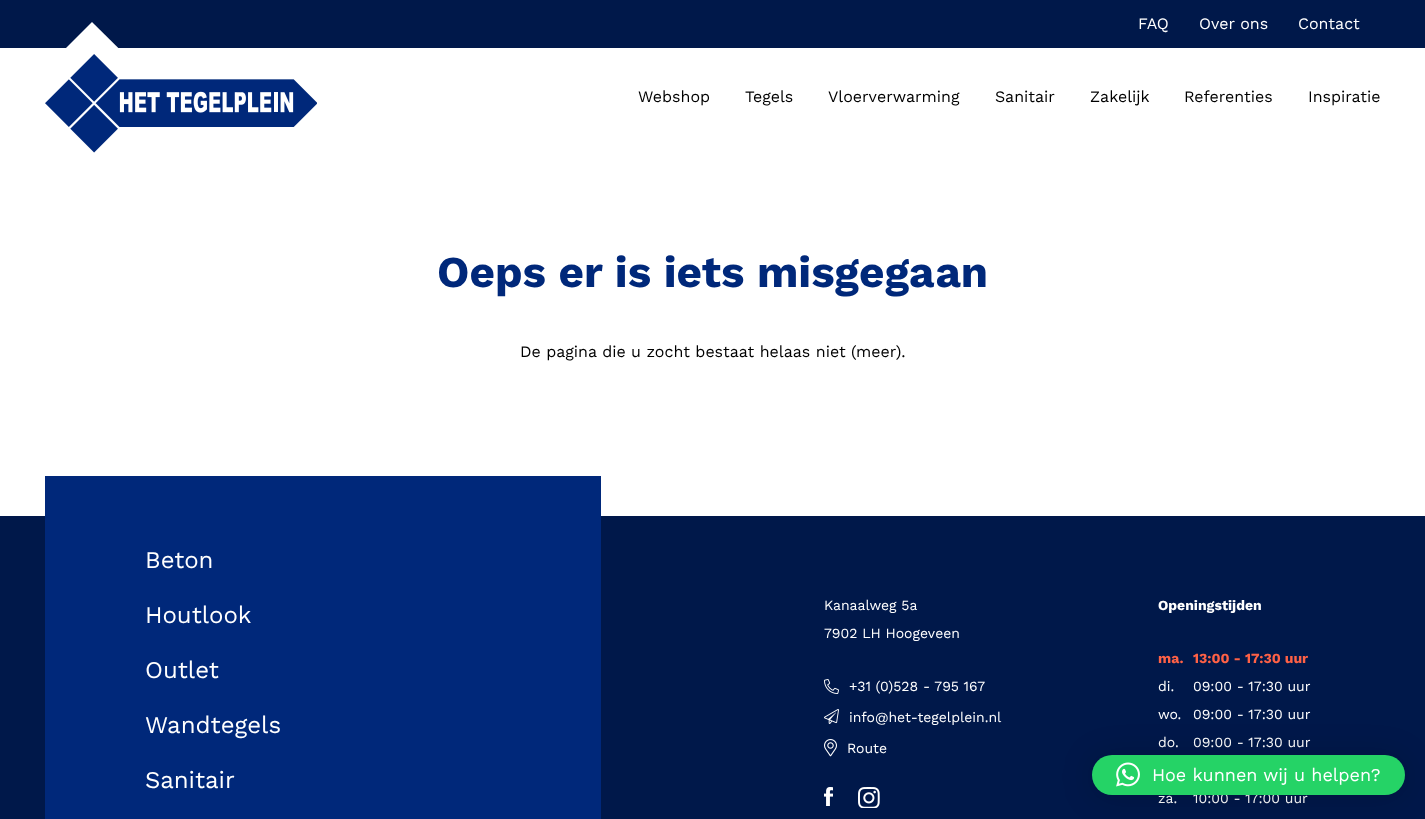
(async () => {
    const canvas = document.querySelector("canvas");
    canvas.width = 1425;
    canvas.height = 819;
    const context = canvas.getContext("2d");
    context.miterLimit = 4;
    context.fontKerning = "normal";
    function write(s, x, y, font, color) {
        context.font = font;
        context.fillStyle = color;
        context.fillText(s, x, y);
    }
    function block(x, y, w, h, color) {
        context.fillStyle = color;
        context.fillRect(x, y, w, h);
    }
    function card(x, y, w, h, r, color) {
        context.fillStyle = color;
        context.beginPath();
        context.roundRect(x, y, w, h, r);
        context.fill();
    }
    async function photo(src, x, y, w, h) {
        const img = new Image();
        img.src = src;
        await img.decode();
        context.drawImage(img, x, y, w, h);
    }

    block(0, 0, 1425, 819, "rgb(255, 255, 255)");
    block(0, 0, 1425, 48, "rgb(0, 24, 74)");
    write("FAQ", 1138, 29, "16px Work Sans", "rgb(255, 255, 255)");
    write("Over ons", 1199, 29, "16px Work Sans", "rgb(255, 255, 255)");
    write("Contact", 1298, 29, "16px Work Sans", "rgb(255, 255, 255)");
    context.beginPath();
    context.moveTo(92, 22);
    context.lineTo(175, 104);
    context.lineTo(92, 186);
    context.lineTo(10, 104);
    context.closePath();
    context.fill();
    await photo("media/1.png", 45, 54, 272, 99);
    write("Webshop", 638, 102, "16px Work Sans", "rgb(0, 0, 0)");
    write("Tegels", 745, 102, "16px Work Sans", "rgb(0, 0, 0)");
    write("Vloerverwarming", 828, 102, "16px Work Sans", "rgb(0, 0, 0)");
    write("Sanitair", 995, 102, "16px Work Sans", "rgb(0, 0, 0)");
    write("Zakelijk", 1090, 102, "16px Work Sans", "rgb(0, 0, 0)");
    write("Referenties", 1184, 102, "16px Work Sans", "rgb(0, 0, 0)");
    write("Inspiratie", 1308, 102, "16px Work Sans", "rgb(0, 0, 0)");
    write("Oeps er is iets misgegaan", 437, 287, "bold 44px Work Sans", "rgb(0, 40, 122)");
    write("De pagina die u zocht bestaat helaas niet (meer).", 520, 357, "16px Work Sans", "rgb(0, 0, 0)");
    block(0, 516, 1425, 303, "rgb(0, 24, 74)");
    block(45, 476, 556, 343, "rgb(0, 40, 122)");
    write("Beton", 145, 568, "24px Work Sans", "rgb(255, 255, 255)");
    write("Houtlook", 145, 623, "24px Work Sans", "rgb(255, 255, 255)");
    write("Outlet", 145, 678, "24px Work Sans", "rgb(255, 255, 255)");
    write("Wandtegels", 145, 733, "24px Work Sans", "rgb(255, 255, 255)");
    write("Sanitair", 145, 788, "24px Work Sans", "rgb(255, 255, 255)");
    write("Kanaalweg 5a", 824, 610, "14px Work Sans", "rgb(255, 255, 255)");
    write("7902 LH Hoogeveen", 824, 638, "14px Work Sans", "rgb(255, 255, 255)");
    await photo("media/2.png", 824, 679, 15, 15);
    write("+31 (0)528 - 795 167", 849, 691, "14px Work Sans", "rgb(255, 255, 255)");
    await photo("media/3.png", 824, 709, 15, 15);
    write("info@het-tegelplein.nl", 849, 722, "14px Work Sans", "rgb(255, 255, 255)");
    await photo("media/4.png", 824, 739, 13, 18);
    write("Route", 847, 753, "14px Work Sans", "rgb(255, 255, 255)");
    await photo("media/5.png", 824, 787, 9, 19);
    await photo("media/6.png", 858, 787, 22, 21);
    write("Openingstijden", 1158, 610, "bold 14px Work Sans", "rgb(255, 255, 255)");
    write("ma.", 1158, 663, "bold 14px Work Sans", "rgb(254, 97, 70)");
    write("13:00 - 17:30 uur", 1193, 663, "bold 14px Work Sans", "rgb(254, 97, 70)");
    write("di.", 1158, 691, "14px Work Sans", "rgb(255, 255, 255)");
    write("09:00 - 17:30 uur", 1193, 691, "14px Work Sans", "rgb(255, 255, 255)");
    write("wo.", 1158, 719, "14px Work Sans", "rgb(255, 255, 255)");
    write("09:00 - 17:30 uur", 1193, 719, "14px Work Sans", "rgb(255, 255, 255)");
    write("do.", 1158, 747, "14px Work Sans", "rgb(255, 255, 255)");
    write("09:00 - 17:30 uur", 1193, 747, "14px Work Sans", "rgb(255, 255, 255)");
    write("za.", 1158, 803, "14px Work Sans", "rgb(255, 255, 255)");
    write("10:00 - 17:00 uur", 1193, 803, "14px Work Sans", "rgb(255, 255, 255)");
    context.fillStyle = "rgba(0, 0, 0, 0.16)";
    context.filter = "blur(16px)";
    context.beginPath();
    context.roundRect(1092, 757, 313, 40, 20);
    context.fill();
    context.filter = "none";
    card(1092, 755, 313, 40, 20, "rgb(37, 211, 102)");
    await photo("media/7.png", 1116, 762, 24, 25);
    write("Hoe kunnen wij u helpen?", 1152, 781, "18px Work Sans", "rgb(255, 255, 255)");
})();
